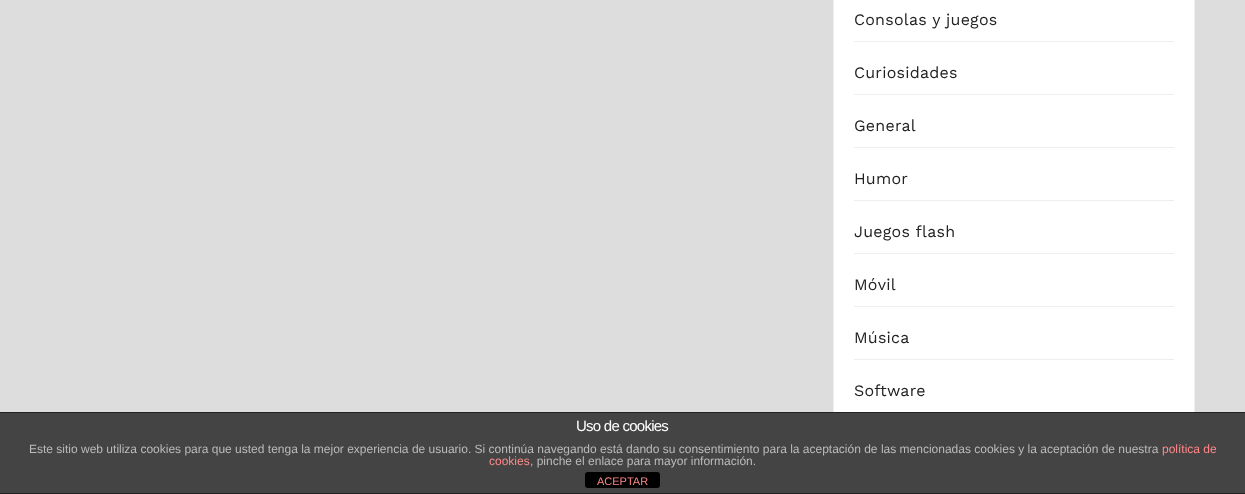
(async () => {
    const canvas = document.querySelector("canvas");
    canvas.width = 1245;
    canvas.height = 494;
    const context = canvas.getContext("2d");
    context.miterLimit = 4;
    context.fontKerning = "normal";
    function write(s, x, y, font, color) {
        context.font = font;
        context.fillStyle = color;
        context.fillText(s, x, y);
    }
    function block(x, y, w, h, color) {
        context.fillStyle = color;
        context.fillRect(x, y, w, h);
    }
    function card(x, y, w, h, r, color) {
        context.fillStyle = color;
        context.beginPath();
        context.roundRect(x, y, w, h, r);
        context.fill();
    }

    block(0, 0, 1245, 494, "rgb(221, 221, 221)");
    block(834, 0, 360, 412, "rgb(255, 255, 255)");
    context.strokeStyle = "rgb(238, 238, 238)";
    context.strokeRect(833.5, -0.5, 361, 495);
    block(854, 41, 320, 1, "rgb(238, 238, 238)");
    context.letterSpacing = "0.25px";
    write("Consolas y juegos", 854, 25, "16px Work Sans", "rgb(34, 34, 34)");
    block(854, 94, 320, 1, "rgb(238, 238, 238)");
    write("Curiosidades", 854, 78, "16px Work Sans", "rgb(34, 34, 34)");
    block(854, 147, 320, 1, "rgb(238, 238, 238)");
    write("General", 854, 131, "16px Work Sans", "rgb(34, 34, 34)");
    block(854, 200, 320, 1, "rgb(238, 238, 238)");
    write("Humor", 854, 184, "16px Work Sans", "rgb(34, 34, 34)");
    block(854, 253, 320, 1, "rgb(238, 238, 238)");
    write("Juegos flash", 854, 237, "16px Work Sans", "rgb(34, 34, 34)");
    block(854, 306, 320, 1, "rgb(238, 238, 238)");
    write("Móvil", 854, 290, "16px Work Sans", "rgb(34, 34, 34)");
    block(854, 359, 320, 1, "rgb(238, 238, 238)");
    write("Música", 854, 343, "16px Work Sans", "rgb(34, 34, 34)");
    write("Software", 854, 396, "16px Work Sans", "rgb(34, 34, 34)");
    block(0, 413, 1245, 80, "rgb(68, 68, 68)");
    block(0, 412, 1245, 1, "rgb(34, 34, 34)");
    block(0, 493, 1245, 1, "rgb(34, 34, 34)");
    context.letterSpacing = "-0.75px";
    write("Uso de cookies", 576, 431, "15px Liberation Sans", "rgb(255, 255, 255)");
    context.letterSpacing = "0px";
    write("Este sitio web utiliza cookies para que usted tenga la mejor experiencia de usuario. Si continúa navegando está dando su consentimiento para la aceptación de las mencionadas cookies y la aceptación de nuestra", 29, 453, "12px Liberation Sans", "rgb(187, 187, 187)");
    write("política de", 1162, 453, "12px Liberation Sans", "rgb(255, 136, 136)");
    write("cookies", 489, 465, "12px Liberation Sans", "rgb(255, 136, 136)");
    write(", pinche el enlace para mayor información.", 530, 465, "12px Liberation Sans", "rgb(187, 187, 187)");
    card(585, 472, 75, 16, 3, "rgb(0, 0, 0)");
    write("ACEPTAR", 597, 485, "11px Liberation Sans", "rgb(255, 136, 136)");
})();
